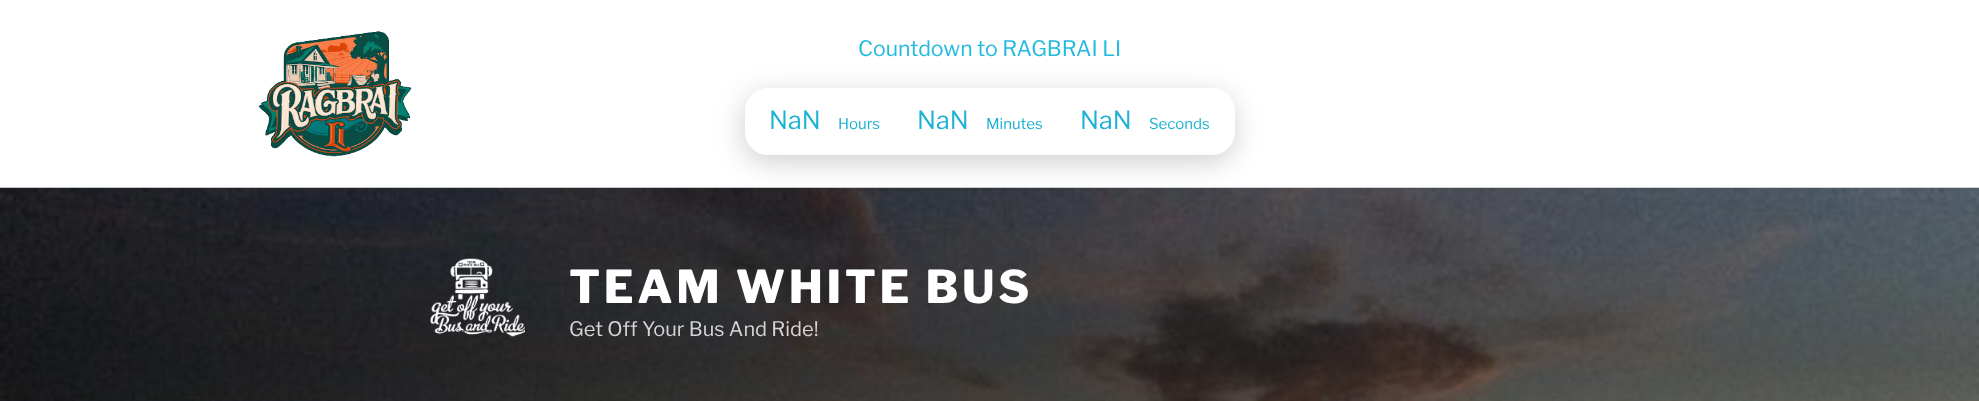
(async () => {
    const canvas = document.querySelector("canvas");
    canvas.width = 1979;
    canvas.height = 401;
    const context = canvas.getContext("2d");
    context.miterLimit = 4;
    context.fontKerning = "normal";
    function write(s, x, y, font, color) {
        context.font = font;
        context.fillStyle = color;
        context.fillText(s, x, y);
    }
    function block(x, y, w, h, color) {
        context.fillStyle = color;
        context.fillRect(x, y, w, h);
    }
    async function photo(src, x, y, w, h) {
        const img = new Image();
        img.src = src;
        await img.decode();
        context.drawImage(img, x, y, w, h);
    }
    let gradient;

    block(0, 0, 1979, 401, "rgb(255, 255, 255)");
    await photo("media/1.png", 258, 31, 154, 126);
    write("Countdown to RAGBRAI LI", 858, 56, "100 21.25px Libre Franklin", "rgb(35, 186, 224)");
    await photo("media/2.png", 0, 187, 1979, 214);
    context.save();
    context.beginPath();
    context.moveTo(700, 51);
    context.lineTo(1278, 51);
    context.lineTo(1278, 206);
    context.lineTo(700, 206);
    context.closePath();
    context.moveTo(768, 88);
    context.lineTo(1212, 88);
    context.bezierCurveTo(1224.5, 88, 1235, 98.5, 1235, 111);
    context.lineTo(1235, 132);
    context.bezierCurveTo(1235, 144.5, 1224.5, 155, 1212, 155);
    context.lineTo(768, 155);
    context.bezierCurveTo(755.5, 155, 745, 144.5, 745, 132);
    context.lineTo(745, 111);
    context.bezierCurveTo(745, 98.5, 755.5, 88, 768, 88);
    context.closePath();
    context.clip("evenodd");
    context.fillStyle = "rgba(0, 0, 0, 0.2)";
    context.filter = "blur(14.5px)";
    context.beginPath();
    context.roundRect(745, 96, 488, 65, 21);
    context.fill();
    context.filter = "none";
    context.restore();
    write("NaN", 769, 129, "100 25px Libre Franklin", "rgb(29, 178, 211)");
    write("Hours", 838, 129, "100 15px Libre Franklin", "rgb(29, 178, 211)");
    write("NaN", 917, 129, "100 25px Libre Franklin", "rgb(29, 178, 211)");
    write("Minutes", 986, 129, "100 15px Libre Franklin", "rgb(29, 178, 211)");
    write("NaN", 1080, 129, "100 25px Libre Franklin", "rgb(29, 178, 211)");
    write("Seconds", 1149, 129, "100 15px Libre Franklin", "rgb(29, 178, 211)");
    gradient = context.createLinearGradient(990, 187, 990, 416);
    gradient.addColorStop(0, "rgba(0, 0, 0, 0)");
    gradient.addColorStop(0.75, "rgba(0, 0, 0, 0.3)");
    gradient.addColorStop(1, "rgba(0, 0, 0, 0.3)");
    context.fillStyle = gradient;
    context.fillRect(0, 199, 1979, 202);
    await photo("media/3.png", 430, 258, 95, 79);
    context.letterSpacing = "3.6px";
    write("TEAM WHITE BUS", 569, 303, "100 45px 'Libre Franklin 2'", "rgb(255, 255, 255)");
    context.letterSpacing = "0px";
    write("Get Off Your Bus And Ride!", 569, 336, "100 20px Libre Franklin", "rgb(213, 213, 213)");
})();
